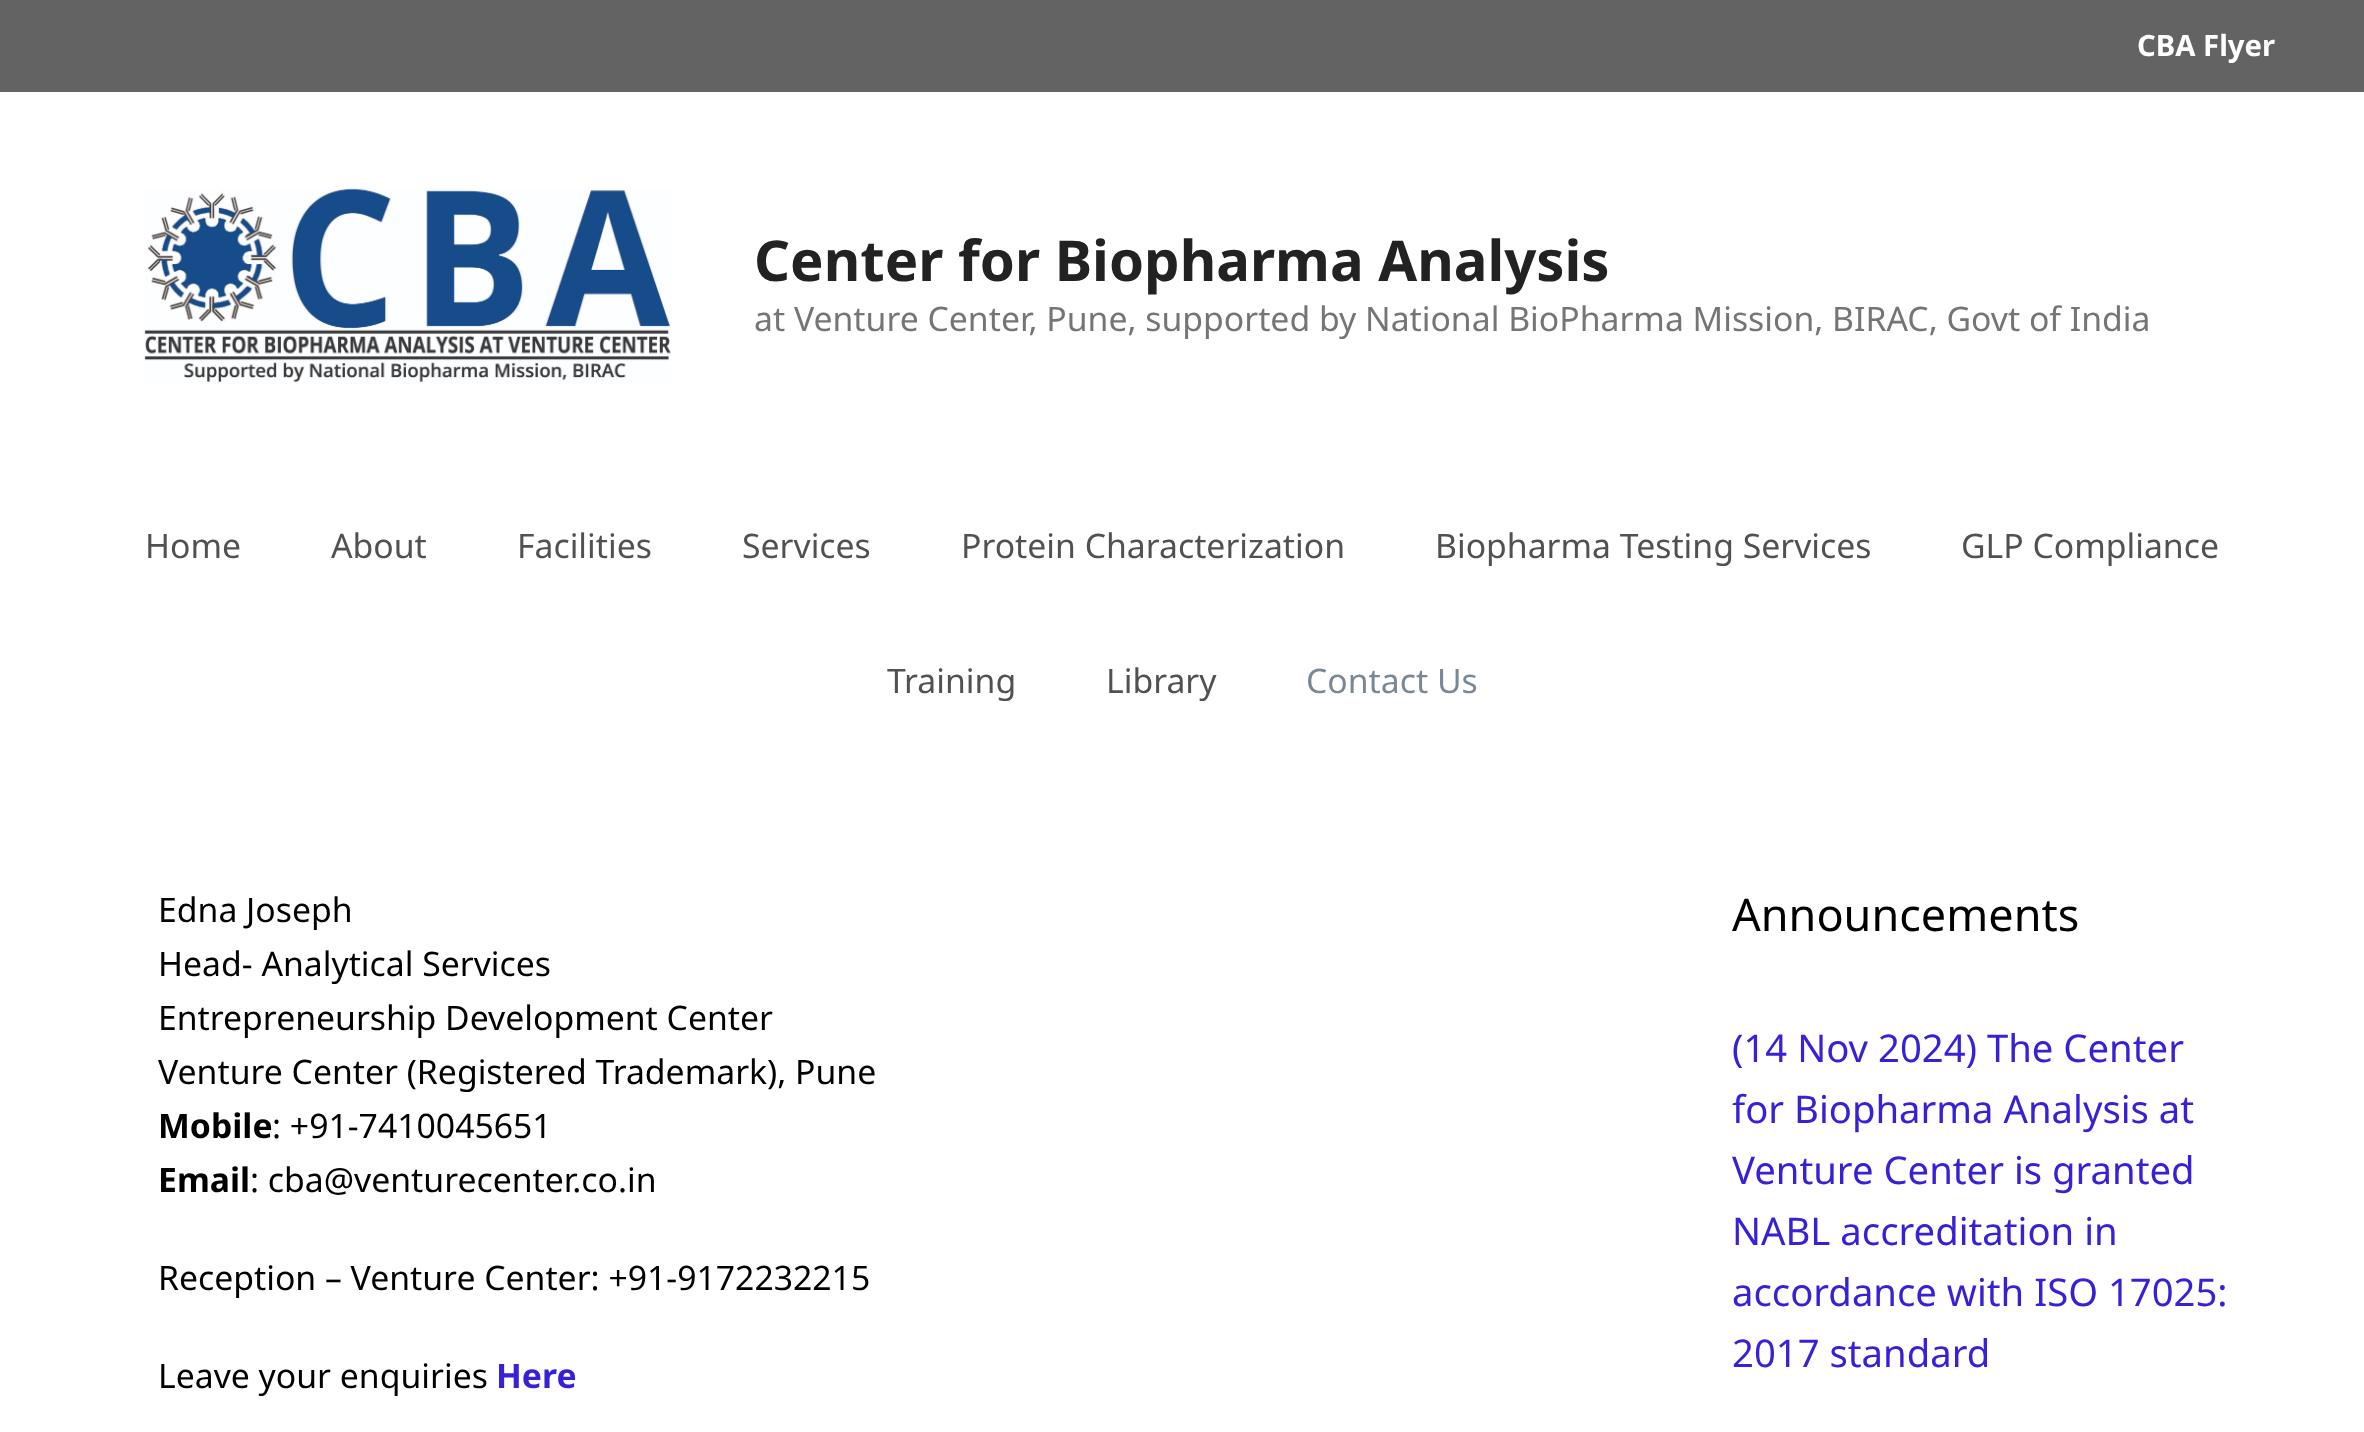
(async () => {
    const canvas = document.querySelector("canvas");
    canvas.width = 2364;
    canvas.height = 1432;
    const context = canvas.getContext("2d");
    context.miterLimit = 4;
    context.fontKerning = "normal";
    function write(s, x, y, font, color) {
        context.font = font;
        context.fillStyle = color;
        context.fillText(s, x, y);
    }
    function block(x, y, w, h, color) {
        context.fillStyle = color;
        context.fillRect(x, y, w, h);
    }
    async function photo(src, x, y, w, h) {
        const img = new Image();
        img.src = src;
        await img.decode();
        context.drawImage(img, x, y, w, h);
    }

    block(0, 0, 2364, 1432, "rgb(255, 255, 255)");
    block(0, 0, 2364, 92, "rgb(99, 99, 99)");
    write("CBA Flyer", 2137, 56, "bold 29.25px Noto Sans", "rgb(255, 255, 255)");
    await photo("media/1.png", 143, 188, 528, 196);
    write("Center for Biopharma Analysis", 754, 281, "bold 56.25px Noto Sans", "rgb(34, 34, 34)");
    write("at Venture Center, Pune, supported by National BioPharma Mission, BIRAC, Govt of India", 754, 331, "33.75px Noto Sans", "rgb(117, 117, 117)");
    write("Home", 145, 558, "33.75px Noto Sans", "rgb(81, 81, 81)");
    write("About", 331, 558, "33.75px Noto Sans", "rgb(81, 81, 81)");
    write("Facilities", 517, 558, "33.75px Noto Sans", "rgb(81, 81, 81)");
    write("Services", 742, 558, "33.75px Noto Sans", "rgb(81, 81, 81)");
    write("Protein Characterization", 961, 558, "33.75px Noto Sans", "rgb(81, 81, 81)");
    write("Biopharma Testing Services", 1435, 558, "33.75px Noto Sans", "rgb(81, 81, 81)");
    write("GLP Compliance", 1961, 558, "33.75px Noto Sans", "rgb(81, 81, 81)");
    write("Training", 887, 693, "33.75px Noto Sans", "rgb(81, 81, 81)");
    write("Library", 1106, 693, "33.75px Noto Sans", "rgb(81, 81, 81)");
    write("Contact Us", 1306, 693, "33.75px Noto Sans", "rgb(122, 136, 150)");
    write("Edna Joseph", 158, 922, "33.75px Noto Sans", "rgb(0, 0, 0)");
    write("Head- Analytical Services", 158, 976, "33.75px Noto Sans", "rgb(0, 0, 0)");
    write("Entrepreneurship Development Center", 158, 1030, "33.75px Noto Sans", "rgb(0, 0, 0)");
    write("Venture Center (Registered Trademark), Pune", 158, 1084, "33.75px Noto Sans", "rgb(0, 0, 0)");
    write("Mobile", 158, 1138, "bold 33.75px Noto Sans", "rgb(0, 0, 0)");
    write(": +91-7410045651", 272, 1138, "33.75px Noto Sans", "rgb(0, 0, 0)");
    write("Email", 158, 1192, "bold 33.75px Noto Sans", "rgb(0, 0, 0)");
    write(": cba@venturecenter.co.in", 250, 1192, "33.75px Noto Sans", "rgb(0, 0, 0)");
    write("Reception – Venture Center: +91-9172232215", 158, 1290, "33.75px Noto Sans", "rgb(0, 0, 0)");
    write("Leave your enquiries", 158, 1388, "33.75px Noto Sans", "rgb(0, 0, 0)");
    write("Here", 496, 1388, "bold 33.75px Noto Sans", "rgb(54, 32, 216)");
    write("Announcements", 1732, 931, "45px Noto Sans", "rgb(0, 0, 0)");
    write("(14 Nov 2024) The Center", 1732, 1062, "38.25px Noto Sans", "rgb(54, 32, 216)");
    write("for Biopharma Analysis at", 1732, 1123, "38.25px Noto Sans", "rgb(54, 32, 216)");
    write("Venture Center is granted", 1732, 1184, "38.25px Noto Sans", "rgb(54, 32, 216)");
    write("NABL accreditation in", 1732, 1245, "38.25px Noto Sans", "rgb(54, 32, 216)");
    write("accordance with ISO 17025:", 1732, 1306, "38.25px Noto Sans", "rgb(54, 32, 216)");
    write("2017 standard", 1732, 1367, "38.25px Noto Sans", "rgb(54, 32, 216)");
})();
